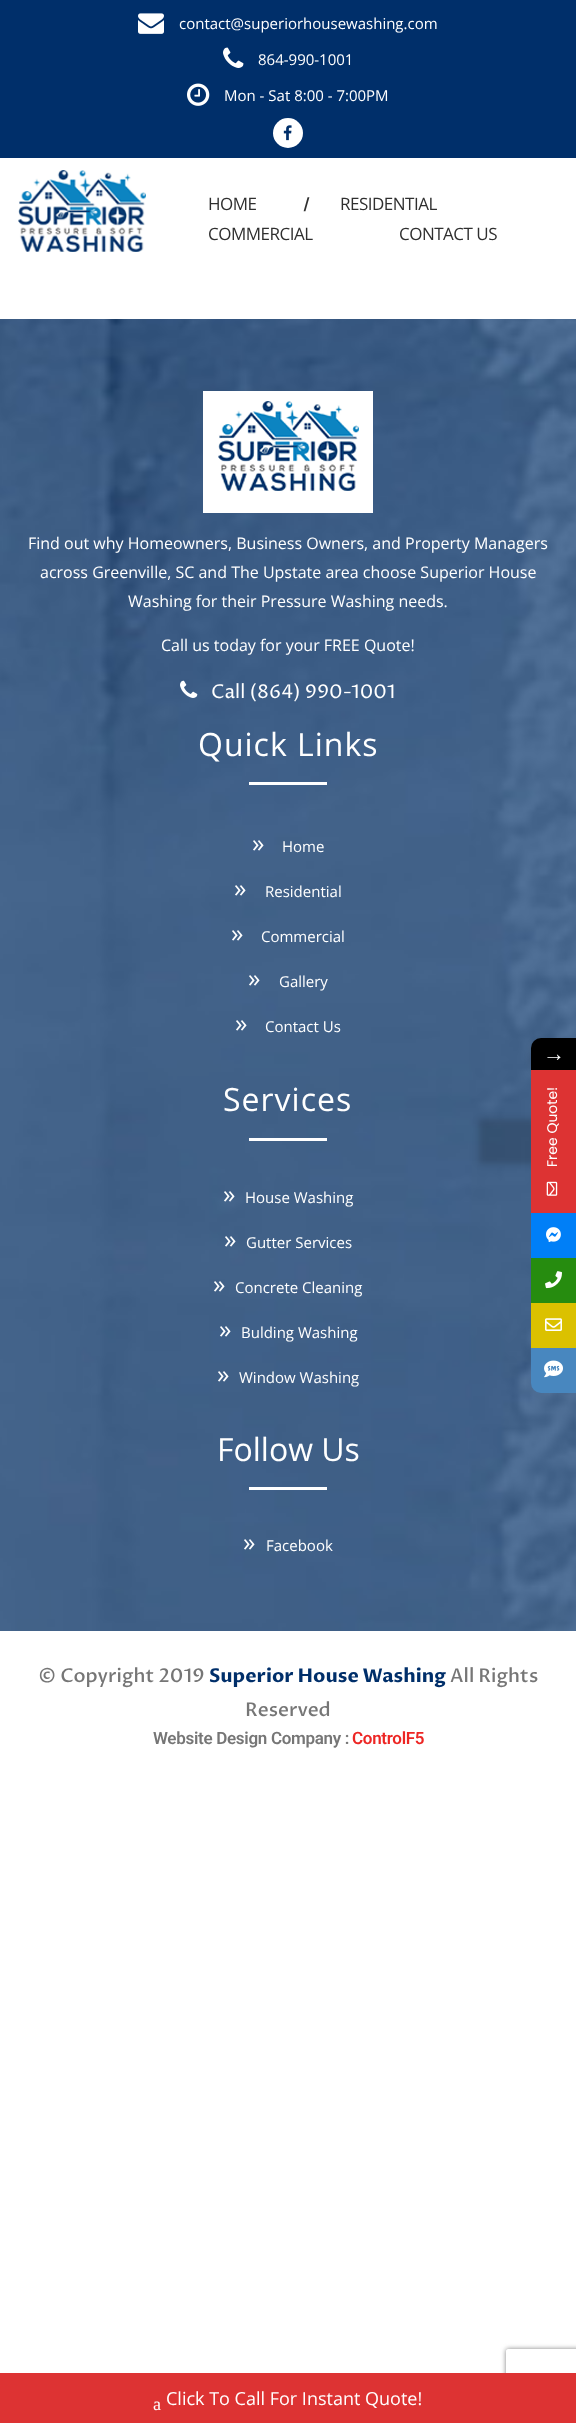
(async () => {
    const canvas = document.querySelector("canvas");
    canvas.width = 576;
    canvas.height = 2423;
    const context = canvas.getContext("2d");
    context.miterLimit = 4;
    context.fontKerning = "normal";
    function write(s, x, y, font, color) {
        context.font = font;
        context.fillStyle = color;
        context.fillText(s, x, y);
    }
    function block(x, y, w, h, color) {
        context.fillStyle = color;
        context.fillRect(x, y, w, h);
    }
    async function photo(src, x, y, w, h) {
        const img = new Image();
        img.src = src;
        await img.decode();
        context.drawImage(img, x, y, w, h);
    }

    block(0, 0, 576, 2423, "rgb(255, 255, 255)");
    block(0, 0, 576, 158, "rgb(0, 47, 106)");
    await photo("media/1.png", 138, 13, 26, 21);
    write("contact@superiorhousewashing.com", 179, 29, "15px Open Sans", "rgb(255, 255, 255)");
    await photo("media/2.png", 223, 47, 21, 21);
    write("864-990-1001", 258, 65, "15px Open Sans", "rgb(255, 255, 255)");
    await photo("media/3.png", 187, 83, 23, 23);
    write("Mon - Sat 8:00 - 7:00PM", 224, 101, "15px Open Sans", "rgb(255, 255, 255)");
    context.beginPath();
    context.arc(288, 133, 15, 0, Math.PI * 2);
    context.fill();
    await photo("media/4.png", 283, 125, 9, 16);
    await photo("media/5.png", 18, 170, 128, 82);
    context.letterSpacing = "-0.5px";
    write("HOME", 208, 210, "17px Open Sans", "rgb(47, 47, 47)");
    write("/", 303, 209, "bold 15px Proza Libre", "rgb(47, 47, 47)");
    write("RESIDENTIAL", 340, 210, "17px Open Sans", "rgb(47, 47, 47)");
    write("COMMERCIAL", 208, 240, "17px Open Sans", "rgb(47, 47, 47)");
    write("CONTACT US", 399, 240, "17px Open Sans", "rgb(47, 47, 47)");
    await photo("media/6.png", 0, 319, 576, 1312);
    block(203, 391, 170, 122, "rgb(255, 255, 255)");
    await photo("media/7.png", 218, 401, 141, 90);
    context.letterSpacing = "0px";
    write("Find out why Homeowners, Business Owners, and Property Managers", 28, 549, "16px Open Sans", "rgb(255, 255, 255)");
    write("across Greenville, SC and The Upstate area choose Superior House", 40, 578, "16px Open Sans", "rgb(255, 255, 255)");
    write("Washing for their Pressure Washing needs.", 128, 607, "16px Open Sans", "rgb(255, 255, 255)");
    write("Call us today for your FREE Quote!", 161, 651, "16px Open Sans", "rgb(255, 255, 255)");
    await photo("media/8.png", 180, 680, 18, 18);
    write("Call (864) 990-1001", 211, 698, "19px Proza Libre", "rgb(255, 255, 255)");
    context.letterSpacing = "1px";
    write("Quick Links", 198, 756, "32px Open Sans", "rgb(255, 255, 255)");
    block(249, 782, 78, 3, "rgb(255, 255, 255)");
    context.letterSpacing = "0px";
    write("»", 252, 852, "25px Open Sans", "rgb(255, 255, 255)");
    write("Home", 282, 852, "15px Open Sans", "rgb(255, 255, 255)");
    write("»", 234, 897, "25px Open Sans", "rgb(255, 255, 255)");
    write("Residential", 265, 897, "15px Open Sans", "rgb(255, 255, 255)");
    write("»", 231, 942, "25px Open Sans", "rgb(255, 255, 255)");
    write("Commercial", 261, 942, "15px Open Sans", "rgb(255, 255, 255)");
    write("»", 248, 987, "25px Open Sans", "rgb(255, 255, 255)");
    write("Gallery", 279, 987, "15px Open Sans", "rgb(255, 255, 255)");
    write("»", 235, 1032, "25px Open Sans", "rgb(255, 255, 255)");
    write("Contact Us", 265, 1032, "15px Open Sans", "rgb(255, 255, 255)");
    context.letterSpacing = "1px";
    write("Services", 223, 1111, "32px Open Sans", "rgb(255, 255, 255)");
    block(249, 1138, 78, 3, "rgb(255, 255, 255)");
    context.letterSpacing = "0px";
    write("»", 223, 1203, "25px Open Sans", "rgb(255, 255, 255)");
    write("House Washing", 245, 1203, "15px Open Sans", "rgb(255, 255, 255)");
    write("»", 224, 1248, "25px Open Sans", "rgb(255, 255, 255)");
    write("Gutter Services", 246, 1248, "15px Open Sans", "rgb(255, 255, 255)");
    write("»", 213, 1293, "25px Open Sans", "rgb(255, 255, 255)");
    write("Concrete Cleaning", 235, 1293, "15px Open Sans", "rgb(255, 255, 255)");
    write("»", 219, 1338, "25px Open Sans", "rgb(255, 255, 255)");
    write("Bulding Washing", 241, 1338, "15px Open Sans", "rgb(255, 255, 255)");
    write("»", 217, 1383, "25px Open Sans", "rgb(255, 255, 255)");
    write("Window Washing", 239, 1383, "15px Open Sans", "rgb(255, 255, 255)");
    write("Follow Us", 217, 1461, "32px Open Sans", "rgb(255, 255, 255)");
    block(249, 1487, 78, 3, "rgb(255, 255, 255)");
    write("»", 243, 1551, "25px Open Sans", "rgb(255, 255, 255)");
    write("Facebook", 266, 1551, "15px Open Sans", "rgb(255, 255, 255)");
    write("© Copyright 2019", 38, 1682, "500 19px Proza Libre", "rgb(118, 118, 118)");
    write("Superior House Washing", 209, 1682, "bold 19px Proza Libre", "rgb(0, 47, 106)");
    write("All Rights", 450, 1682, "500 19px Proza Libre", "rgb(118, 118, 118)");
    write("Reserved", 245, 1716, "500 19px Proza Libre", "rgb(118, 118, 118)");
    context.letterSpacing = "-0.3px";
    write("Website Design Company :", 153, 1744, "600 17px Roboto", "rgb(118, 118, 118)");
    write("ControlF5", 352, 1744, "600 17px Roboto", "rgb(237, 38, 36)");
    context.fillStyle = "rgba(0, 0, 0, 0.16)";
    context.filter = "blur(3px)";
    context.beginPath();
    context.roundRect(531, 1041, 45, 32, 10);
    context.fill();
    context.filter = "none";
    context.fillStyle = "rgb(0, 0, 0)";
    context.beginPath();
    context.roundRect(531, 1038, 45, 32, [10, 0, 0, 0]);
    context.fill();
    context.letterSpacing = "0px";
    write("→", 543, 1061, "22px Liberation Serif", "rgb(255, 255, 255)");
    context.fillStyle = "rgba(0, 0, 0, 0.16)";
    context.filter = "blur(3px)";
    context.beginPath();
    context.rect(479, 1119, 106, 45);
    context.fill();
    context.filter = "none";
    block(531, 1070, 45, 143, "rgb(221, 51, 51)");
    context.font = "14px Poppins";
    context.fillStyle = "rgb(255, 255, 255)";
    context.save();
    context.translate(557, 1167);
    context.rotate(-90 * Math.PI / 180);
    context.fillText("Free Quote!", 0, 0);
    context.restore();
    await photo("media/9.png", 546, 1181, 12, 15);
    block(531, 1213, 45, 45, "rgb(0, 127, 247)");
    await photo("media/10.png", 546, 1227, 15, 15);
    block(531, 1258, 45, 45, "rgb(38, 140, 15)");
    await photo("media/11.png", 545, 1271, 17, 18);
    block(531, 1303, 45, 45, "rgb(219, 193, 0)");
    await photo("media/12.png", 545, 1318, 17, 13);
    context.fillStyle = "rgb(72, 135, 191)";
    context.beginPath();
    context.roundRect(531, 1348, 45, 45, [0, 0, 0, 10]);
    context.fill();
    await photo("media/13.png", 544, 1360, 19, 18);
    context.save();
    context.beginPath();
    context.moveTo(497, 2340);
    context.lineTo(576, 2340);
    context.lineTo(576, 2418);
    context.lineTo(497, 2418);
    context.closePath();
    context.moveTo(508, 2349);
    context.lineTo(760, 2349);
    context.bezierCurveTo(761, 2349, 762, 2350, 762, 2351);
    context.lineTo(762, 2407);
    context.bezierCurveTo(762, 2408, 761, 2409, 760, 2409);
    context.lineTo(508, 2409);
    context.bezierCurveTo(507, 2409, 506, 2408, 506, 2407);
    context.lineTo(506, 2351);
    context.bezierCurveTo(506, 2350, 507, 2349, 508, 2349);
    context.closePath();
    context.clip("evenodd");
    context.fillStyle = "rgb(128, 128, 128)";
    context.filter = "blur(2.5px)";
    context.beginPath();
    context.roundRect(506, 2349, 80, 60, 2);
    context.fill();
    context.filter = "none";
    context.restore();
    block(0, 2373, 576, 50, "rgb(221, 51, 51)");
    write("a", 153, 2410, "18px Liberation Serif", "rgb(255, 255, 255)");
    write("Click To Call For Instant Quote!", 166, 2405, "18px Open Sans", "rgb(255, 255, 255)");
})();
